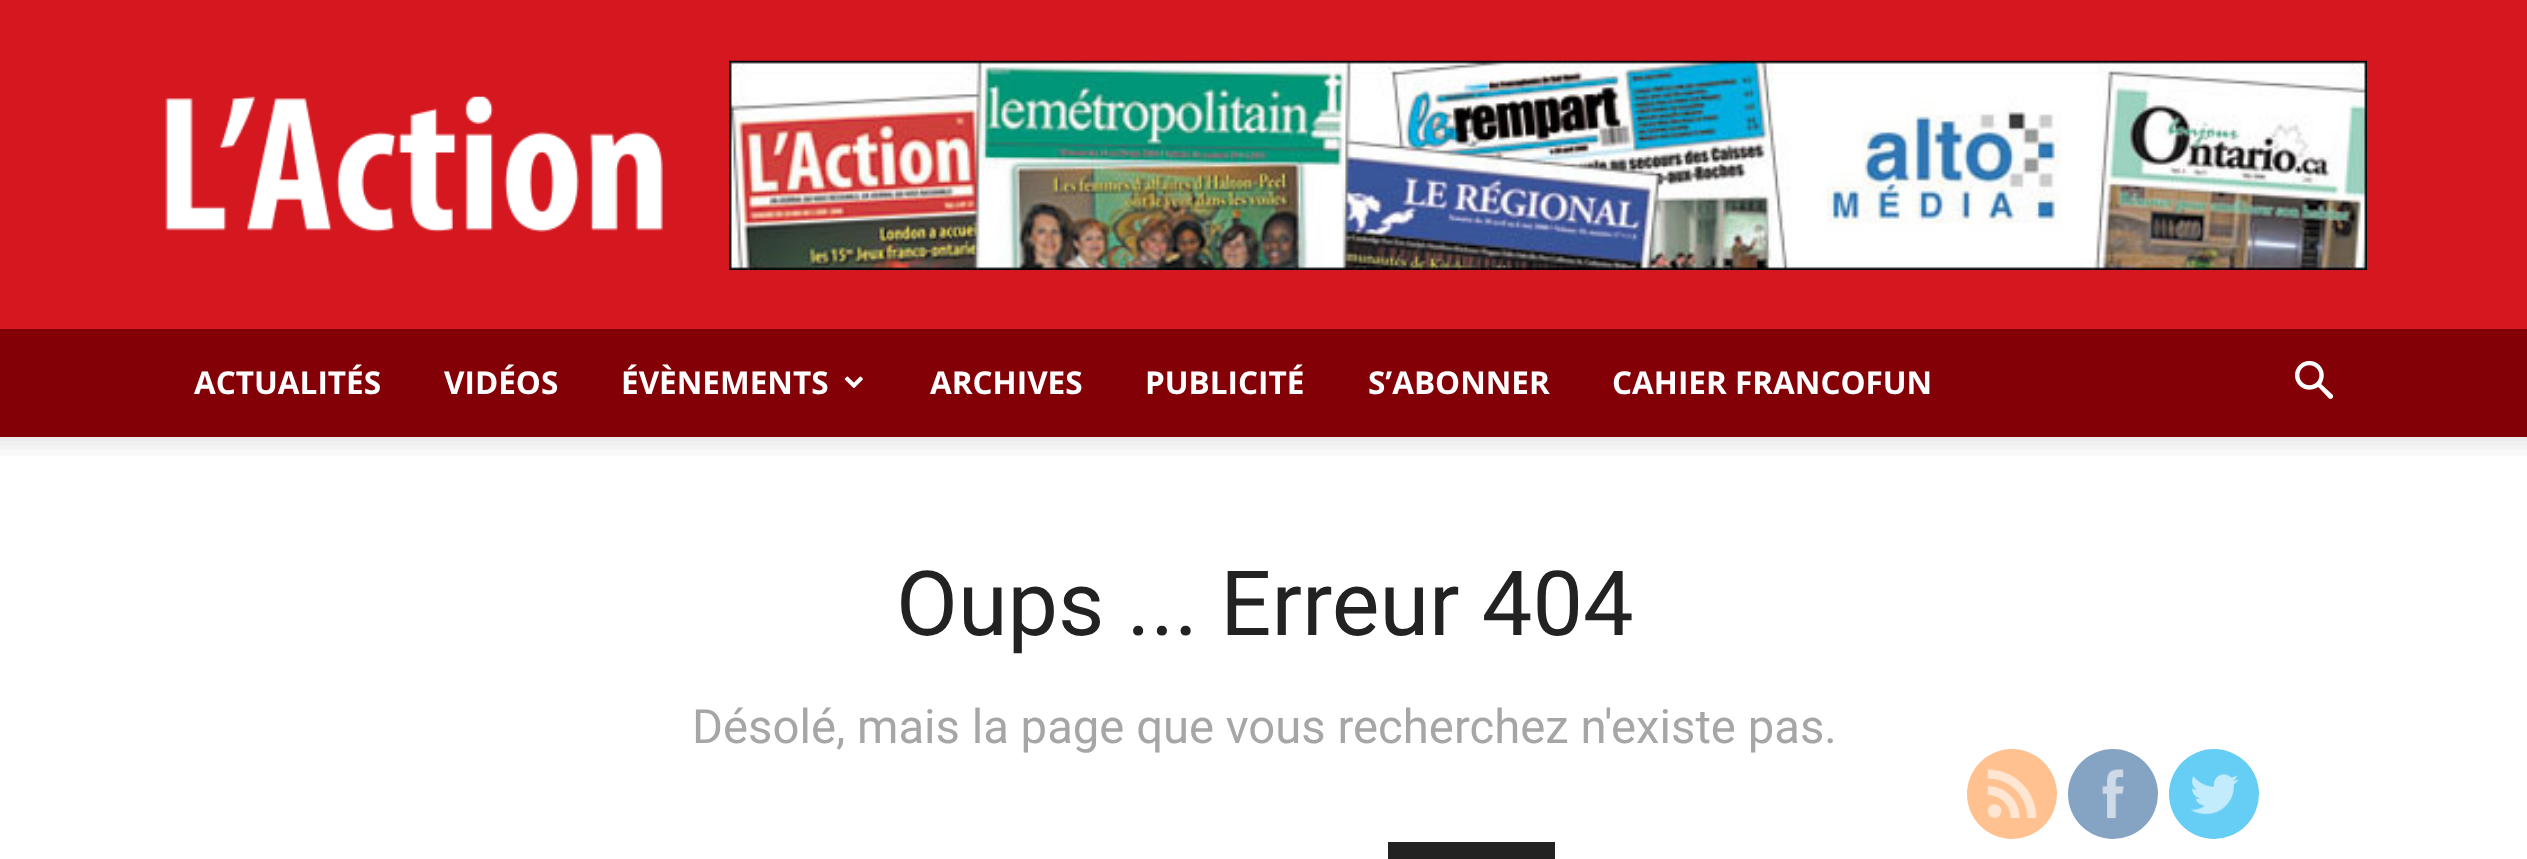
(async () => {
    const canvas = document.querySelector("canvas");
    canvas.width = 2527;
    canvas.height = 859;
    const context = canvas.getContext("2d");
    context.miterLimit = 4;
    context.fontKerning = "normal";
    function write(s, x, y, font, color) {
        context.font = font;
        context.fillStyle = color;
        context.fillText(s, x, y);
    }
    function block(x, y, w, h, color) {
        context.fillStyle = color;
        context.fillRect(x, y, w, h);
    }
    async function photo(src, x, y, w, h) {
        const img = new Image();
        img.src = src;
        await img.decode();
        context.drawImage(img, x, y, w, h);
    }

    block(0, 0, 2527, 859, "rgb(255, 255, 255)");
    block(0, 0, 2527, 329, "rgb(213, 24, 32)");
    await photo("media/1.png", 165, 96, 498, 136);
    await photo("media/2.png", 729, 60, 1638, 210);
    block(0, 329, 2527, 108, "rgb(132, 0, 7)");
    write("ACTUALITÉS", 194, 394, "bold 31.5px Open Sans", "rgb(255, 255, 255)");
    write("VIDÉOS", 444, 394, "bold 31.5px Open Sans", "rgb(255, 255, 255)");
    write("ÉVÈNEMENTS", 621, 394, "bold 31.5px Open Sans", "rgb(255, 255, 255)");
    await photo("media/3.png", 844, 376, 19, 13);
    write("ARCHIVES", 930, 394, "bold 31.5px Open Sans", "rgb(255, 255, 255)");
    write("PUBLICITÉ", 1145, 394, "bold 31.5px Open Sans", "rgb(255, 255, 255)");
    write("S’ABONNER", 1368, 394, "bold 31.5px Open Sans", "rgb(255, 255, 255)");
    write("CAHIER FRANCOFUN", 1612, 394, "bold 31.5px Open Sans", "rgb(255, 255, 255)");
    await photo("media/4.png", 2295, 360, 39, 39);
    await photo("media/5.png", 0, 436, 2527, 20);
    write("Oups ... Erreur 404", 896, 635, "90px Roboto", "rgb(34, 34, 34)");
    write("Désolé, mais la page que vous recherchez n'existe pas.", 692, 743, "47.25px Roboto", "rgb(166, 166, 166)");
    block(1388, 842, 167, 17, "rgb(34, 34, 34)");
    context.fillStyle = "rgb(255, 193, 143)";
    context.beginPath();
    context.arc(2012, 794, 45, 0, Math.PI * 2);
    context.fill();
    await photo("media/6.png", 1987, 769, 50, 49);
    context.fillStyle = "rgb(133, 163, 194)";
    context.beginPath();
    context.arc(2113, 794, 45, 0, Math.PI * 2);
    context.fill();
    await photo("media/7.png", 2102, 769, 22, 50);
    context.fillStyle = "rgb(102, 205, 244)";
    context.beginPath();
    context.arc(2214, 794, 45, 0, Math.PI * 2);
    context.fill();
    await photo("media/8.png", 2190, 774, 49, 41);
})();
